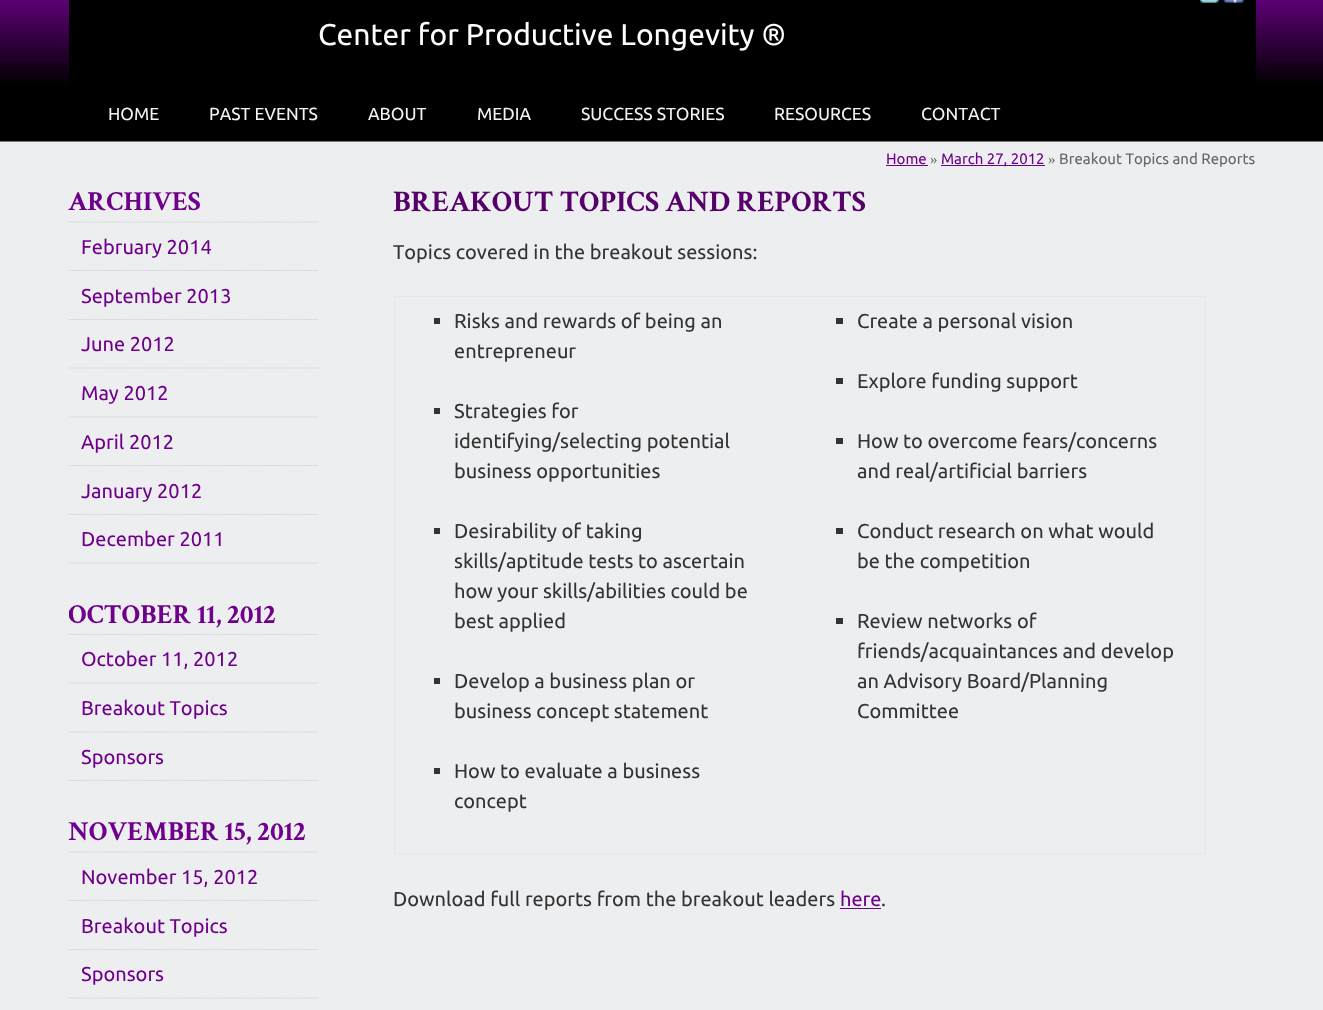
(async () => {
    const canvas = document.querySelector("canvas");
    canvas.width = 1323;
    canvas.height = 1010;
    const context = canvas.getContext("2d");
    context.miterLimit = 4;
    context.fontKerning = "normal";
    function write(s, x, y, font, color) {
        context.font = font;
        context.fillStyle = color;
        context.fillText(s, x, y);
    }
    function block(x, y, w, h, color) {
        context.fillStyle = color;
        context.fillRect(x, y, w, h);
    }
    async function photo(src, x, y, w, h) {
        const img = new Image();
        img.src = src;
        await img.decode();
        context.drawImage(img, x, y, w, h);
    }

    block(0, 0, 1323, 1010, "rgb(237, 238, 240)");
    await photo("media/1.png", 0, 0, 1323, 142);
    block(69, 0, 1187, 85, "rgb(0, 0, 0)");
    await photo("media/2.png", 1200, 0, 19, 3);
    await photo("media/3.png", 1223, 0, 21, 3);
    write("Center for Productive Longevity ®", 318, 45, "30px Ubuntu", "rgb(255, 255, 255)");
    write("HOME", 108, 120, "17.5px Ubuntu", "rgb(243, 243, 243)");
    write("PAST EVENTS", 209, 120, "17.5px Ubuntu", "rgb(243, 243, 243)");
    write("ABOUT", 368, 120, "17.5px Ubuntu", "rgb(243, 243, 243)");
    write("MEDIA", 477, 120, "17.5px Ubuntu", "rgb(243, 243, 243)");
    write("SUCCESS STORIES", 581, 120, "17.5px Ubuntu", "rgb(243, 243, 243)");
    write("RESOURCES", 774, 120, "17.5px Ubuntu", "rgb(243, 243, 243)");
    write("CONTACT", 921, 120, "17.5px Ubuntu", "rgb(243, 243, 243)");
    write("Home", 886, 164, "15px Ubuntu", "rgb(111, 0, 139)");
    block(886, 165, 42, 1, "rgb(111, 0, 139)");
    write("»", 930, 164, "15px Liberation Serif", "rgb(102, 102, 102)");
    block(941, 165, 104, 1, "rgb(111, 0, 139)");
    write("March 27, 2012", 941, 164, "15px Ubuntu", "rgb(111, 0, 139)");
    write("»", 1048, 164, "15px Liberation Serif", "rgb(102, 102, 102)");
    write("Breakout Topics and Reports", 1059, 164, "15px Ubuntu", "rgb(102, 102, 102)");
    context.beginPath();
    context.moveTo(69, 222);
    context.lineTo(319, 222);
    context.strokeStyle = "rgb(204, 204, 204)";
    context.lineWidth = 1.2;
    context.setLineDash([1.25, 1.25]);
    context.stroke();
    write("ARCHIVES", 68, 210, "bold 27.5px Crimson", "rgb(111, 0, 139)");
    context.beginPath();
    context.moveTo(69, 270.5);
    context.lineTo(319, 270.5);
    context.stroke();
    write("February 2014", 81, 254, "20px Ubuntu", "rgb(111, 0, 139)");
    context.beginPath();
    context.moveTo(69, 319.5);
    context.lineTo(319, 319.5);
    context.stroke();
    write("September 2013", 81, 303, "20px Ubuntu", "rgb(111, 0, 139)");
    context.beginPath();
    context.moveTo(69, 368);
    context.lineTo(319, 368);
    context.stroke();
    write("June 2012", 81, 351, "20px Ubuntu", "rgb(111, 0, 139)");
    context.beginPath();
    context.moveTo(69, 417);
    context.lineTo(319, 417);
    context.stroke();
    write("May 2012", 81, 400, "20px Ubuntu", "rgb(111, 0, 139)");
    context.beginPath();
    context.moveTo(69, 465.5);
    context.lineTo(319, 465.5);
    context.stroke();
    write("April 2012", 81, 449, "20px Ubuntu", "rgb(111, 0, 139)");
    context.beginPath();
    context.moveTo(69, 514.5);
    context.lineTo(319, 514.5);
    context.stroke();
    write("January 2012", 81, 498, "20px Ubuntu", "rgb(111, 0, 139)");
    context.beginPath();
    context.moveTo(69, 563);
    context.lineTo(319, 563);
    context.stroke();
    write("December 2011", 81, 546, "20px Ubuntu", "rgb(111, 0, 139)");
    context.beginPath();
    context.moveTo(69, 634.5);
    context.lineTo(319, 634.5);
    context.stroke();
    context.save();
    context.beginPath();
    context.rect(69, 189, 275, 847);
    context.clip();
    write("OCTOBER 11, 2012", 68, 623, "bold 27.5px Crimson", "rgb(111, 0, 139)");
    context.restore();
    context.beginPath();
    context.moveTo(69, 683);
    context.lineTo(319, 683);
    context.stroke();
    write("October 11, 2012", 81, 666, "20px Ubuntu", "rgb(111, 0, 139)");
    context.beginPath();
    context.moveTo(69, 732);
    context.lineTo(319, 732);
    context.stroke();
    write("Breakout Topics", 81, 715, "20px Ubuntu", "rgb(111, 0, 139)");
    context.beginPath();
    context.moveTo(69, 780.5);
    context.lineTo(319, 780.5);
    context.stroke();
    write("Sponsors", 81, 764, "20px Ubuntu", "rgb(111, 0, 139)");
    context.beginPath();
    context.moveTo(69, 852);
    context.lineTo(319, 852);
    context.stroke();
    write("NOVEMBER 15, 2012", 68, 840, "bold 27.5px Crimson", "rgb(111, 0, 139)");
    context.beginPath();
    context.moveTo(69, 900.5);
    context.lineTo(319, 900.5);
    context.stroke();
    write("November 15, 2012", 81, 884, "20px Ubuntu", "rgb(111, 0, 139)");
    context.beginPath();
    context.moveTo(69, 949.5);
    context.lineTo(319, 949.5);
    context.stroke();
    write("Breakout Topics", 81, 933, "20px Ubuntu", "rgb(111, 0, 139)");
    context.beginPath();
    context.moveTo(69, 998);
    context.lineTo(319, 998);
    context.stroke();
    write("Sponsors", 81, 981, "20px Ubuntu", "rgb(111, 0, 139)");
    write("BREAKOUT TOPICS AND REPORTS", 393, 211, "bold 30px Crimson", "rgb(86, 0, 106)");
    write("Topics covered in the breakout sessions:", 393, 259, "20px Ubuntu", "rgb(51, 51, 51)");
    block(394, 296, 812, 1, "rgb(231, 231, 231)");
    block(1205, 296, 1, 558, "rgb(231, 231, 231)");
    block(394, 853, 812, 1, "rgb(231, 231, 231)");
    block(394, 296, 1, 558, "rgb(231, 231, 231)");
    block(434, 318, 6, 6, "rgb(51, 51, 51)");
    write("Risks and rewards of being an", 454, 328, "20px Ubuntu", "rgb(51, 51, 51)");
    write("entrepreneur", 454, 358, "20px Ubuntu", "rgb(51, 51, 51)");
    block(434, 408, 6, 6, "rgb(51, 51, 51)");
    write("Strategies for", 454, 418, "20px Ubuntu", "rgb(51, 51, 51)");
    write("identifying/selecting potential", 454, 448, "20px Ubuntu", "rgb(51, 51, 51)");
    write("business opportunities", 454, 478, "20px Ubuntu", "rgb(51, 51, 51)");
    block(434, 528, 6, 6, "rgb(51, 51, 51)");
    write("Desirability of taking", 454, 538, "20px Ubuntu", "rgb(51, 51, 51)");
    write("skills/aptitude tests to ascertain", 454, 568, "20px Ubuntu", "rgb(51, 51, 51)");
    write("how your skills/abilities could be", 454, 598, "20px Ubuntu", "rgb(51, 51, 51)");
    write("best applied", 454, 628, "20px Ubuntu", "rgb(51, 51, 51)");
    block(434, 678, 6, 6, "rgb(51, 51, 51)");
    write("Develop a business plan or", 454, 688, "20px Ubuntu", "rgb(51, 51, 51)");
    write("business concept statement", 454, 718, "20px Ubuntu", "rgb(51, 51, 51)");
    block(434, 768, 6, 6, "rgb(51, 51, 51)");
    write("How to evaluate a business", 454, 778, "20px Ubuntu", "rgb(51, 51, 51)");
    write("concept", 454, 808, "20px Ubuntu", "rgb(51, 51, 51)");
    block(836, 318, 7, 6, "rgb(51, 51, 51)");
    write("Create a personal vision", 857, 328, "20px Ubuntu", "rgb(51, 51, 51)");
    block(836, 378, 7, 6, "rgb(51, 51, 51)");
    write("Explore funding support", 857, 388, "20px Ubuntu", "rgb(51, 51, 51)");
    block(836, 438, 7, 6, "rgb(51, 51, 51)");
    write("How to overcome fears/concerns", 857, 448, "20px Ubuntu", "rgb(51, 51, 51)");
    write("and real/artificial barriers", 857, 478, "20px Ubuntu", "rgb(51, 51, 51)");
    block(836, 528, 7, 6, "rgb(51, 51, 51)");
    write("Conduct research on what would", 857, 538, "20px Ubuntu", "rgb(51, 51, 51)");
    write("be the competition", 857, 568, "20px Ubuntu", "rgb(51, 51, 51)");
    block(836, 618, 7, 6, "rgb(51, 51, 51)");
    write("Review networks of", 857, 628, "20px Ubuntu", "rgb(51, 51, 51)");
    write("friends/acquaintances and develop", 857, 658, "20px Ubuntu", "rgb(51, 51, 51)");
    write("an Advisory Board/Planning", 857, 688, "20px Ubuntu", "rgb(51, 51, 51)");
    write("Committee", 857, 718, "20px Ubuntu", "rgb(51, 51, 51)");
    write("Download full reports from the breakout leaders", 393, 906, "20px Ubuntu", "rgb(51, 51, 51)");
    write("here", 840, 906, "20px Ubuntu", "rgb(111, 0, 139)");
    block(840, 908, 41, 1, "rgb(111, 0, 139)");
    write(".", 881, 906, "20px Ubuntu", "rgb(51, 51, 51)");
})();
